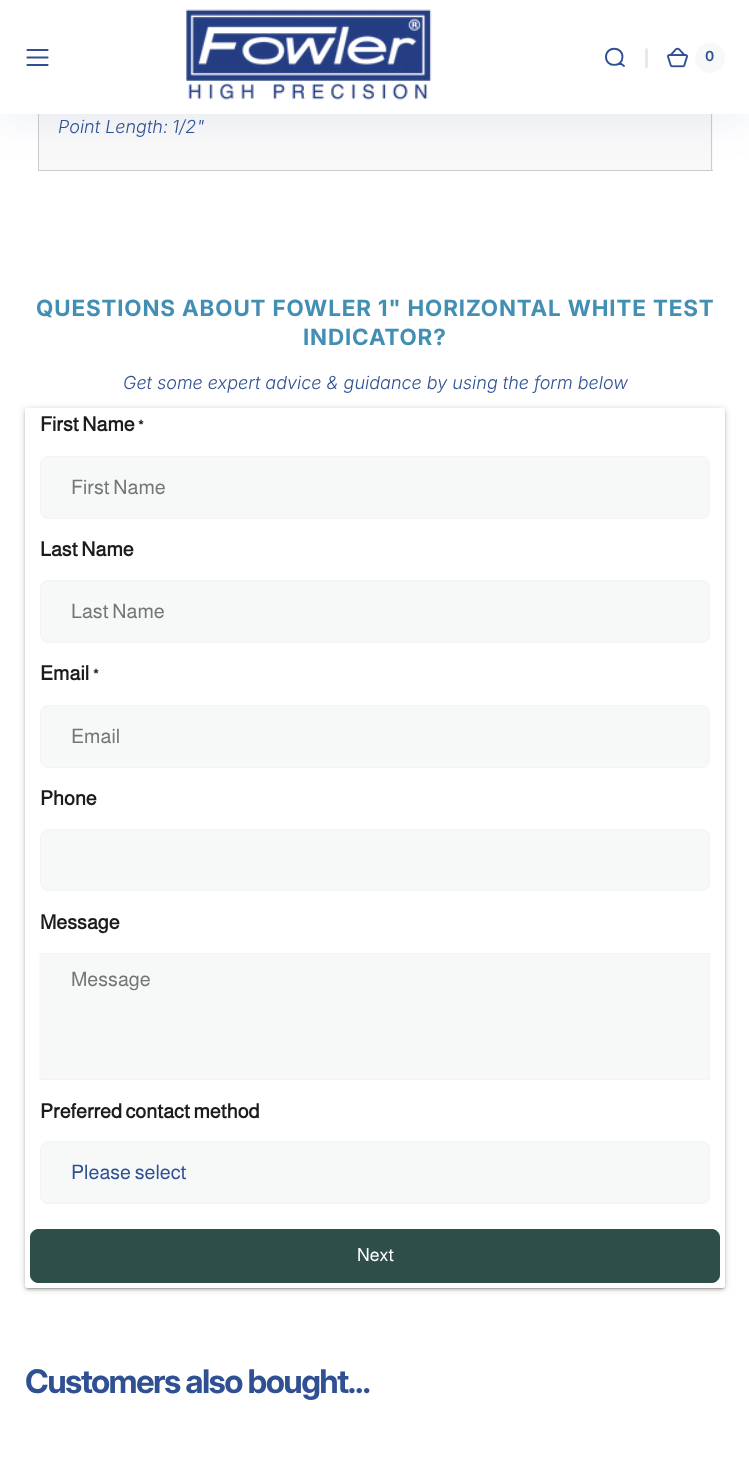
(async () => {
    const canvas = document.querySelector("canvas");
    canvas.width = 749;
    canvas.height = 1472;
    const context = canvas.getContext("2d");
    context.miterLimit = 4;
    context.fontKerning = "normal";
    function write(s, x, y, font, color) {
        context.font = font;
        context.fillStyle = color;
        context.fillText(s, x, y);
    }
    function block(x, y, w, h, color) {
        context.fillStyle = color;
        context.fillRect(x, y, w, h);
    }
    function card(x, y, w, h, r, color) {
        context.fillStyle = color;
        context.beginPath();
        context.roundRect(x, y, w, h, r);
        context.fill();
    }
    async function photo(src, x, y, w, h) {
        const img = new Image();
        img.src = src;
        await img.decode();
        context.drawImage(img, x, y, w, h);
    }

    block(0, 0, 749, 1472, "rgb(255, 255, 255)");
    block(39, 114, 674, 56, "rgb(249, 249, 249)");
    block(711, 114, 1, 57, "rgb(204, 204, 204)");
    block(38, 170, 675, 1, "rgb(204, 204, 204)");
    block(38, 114, 1, 57, "rgb(204, 204, 204)");
    context.fillStyle = "rgba(47, 80, 147, 0.08)";
    context.filter = "blur(19px)";
    context.beginPath();
    context.rect(0, 10, 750, 114);
    context.fill();
    context.filter = "none";
    block(0, 0, 749, 114, "rgb(255, 255, 255)");
    context.beginPath();
    context.moveTo(27.5, 50);
    context.lineTo(47.5, 50);
    context.moveTo(27.5, 57.5);
    context.lineTo(47.5, 57.5);
    context.moveTo(27.5, 65);
    context.lineTo(47.5, 65);
    context.strokeStyle = "rgb(47, 80, 147)";
    context.lineWidth = 2.2;
    context.lineCap = "round";
    context.stroke();
    await photo("media/1.png", 186, 9, 246, 91);
    context.beginPath();
    context.moveTo(620, 63);
    context.lineTo(624, 66);
    context.moveTo(622.5, 57);
    context.bezierCurveTo(622.5, 67.5, 606, 67.5, 606, 57);
    context.bezierCurveTo(606, 46, 622.5, 46, 622.5, 57);
    context.closePath();
    context.lineWidth = 1.9;
    context.stroke();
    card(645, 48, 3, 20, 1.5, "rgb(230, 232, 233)");
    await photo("media/2.png", 667, 47, 21, 21);
    context.fillStyle = "rgb(247, 248, 248)";
    context.beginPath();
    context.arc(710, 58, 15, 0, Math.PI * 2);
    context.fill();
    write("0", 705, 61, "600 14px Inter", "rgb(47, 80, 147)");
    write("Point Length:", 58, 133, "italic 300 18px Inter", "rgb(47, 80, 147)");
    write("1/2\"", 172, 133, "italic 300 18px Inter", "rgb(47, 80, 147)");
    context.letterSpacing = "0.9px";
    write("QUESTIONS ABOUT FOWLER 1\" HORIZONTAL WHITE TEST", 36, 316, "bold 22.5px Inter", "rgb(67, 143, 179)");
    write("INDICATOR?", 303, 345, "bold 22.5px Inter", "rgb(67, 143, 179)");
    context.letterSpacing = "0px";
    context.wordSpacing = "-0.1px";
    write("Get some expert advice & guidance by using the form below", 123, 389, "italic 300 18px Inter", "rgb(47, 80, 147)");
    context.fillStyle = "rgba(0, 0, 0, 0.2)";
    context.filter = "blur(3px)";
    context.beginPath();
    context.roundRect(25, 409, 700, 880, 2.5);
    context.fill();
    context.filter = "none";
    context.fillStyle = "rgba(0, 0, 0, 0.12)";
    context.filter = "blur(0.5px)";
    context.beginPath();
    context.rect(28, 414, 695, 875);
    context.fill();
    context.filter = "none";
    context.fillStyle = "rgba(0, 0, 0, 0.14)";
    context.filter = "blur(1px)";
    context.beginPath();
    context.roundRect(25, 410, 700, 880, 2.5);
    context.fill();
    context.filter = "none";
    card(25, 408, 700, 880, 2.5, "rgb(255, 255, 255)");
    context.wordSpacing = "0px";
    write("First Name", 40, 431, "bold 20px Almarai", "rgb(28, 28, 28)");
    write("*", 138, 431, "bold 15px Almarai", "rgb(28, 28, 28)");
    context.fillStyle = "rgb(247, 248, 248)";
    context.beginPath();
    context.roundRect(40.5, 456.5, 669, 62, 7.5);
    context.fill();
    context.strokeStyle = "rgb(242, 243, 244)";
    context.lineWidth = 1;
    context.stroke();
    write("First Name", 71, 494, "20px Almarai", "rgb(117, 117, 117)");
    write("Last Name", 40, 556, "bold 20px Almarai", "rgb(28, 28, 28)");
    context.fillStyle = "rgb(247, 248, 248)";
    context.beginPath();
    context.roundRect(40.5, 580.5, 669, 62, 7.5);
    context.fill();
    context.stroke();
    write("Last Name", 71, 618, "20px Almarai", "rgb(117, 117, 117)");
    write("Email", 40, 680, "bold 20px Almarai", "rgb(28, 28, 28)");
    write("*", 93, 680, "bold 15px Almarai", "rgb(28, 28, 28)");
    context.fillStyle = "rgb(247, 248, 248)";
    context.beginPath();
    context.roundRect(40.5, 705.5, 669, 62, 7.5);
    context.fill();
    context.stroke();
    write("Email", 71, 743, "20px Almarai", "rgb(117, 117, 117)");
    write("Phone", 40, 805, "bold 20px Almarai", "rgb(28, 28, 28)");
    context.fillStyle = "rgb(247, 248, 248)";
    context.beginPath();
    context.roundRect(40.5, 829.5, 669, 61, 7.5);
    context.fill();
    context.stroke();
    write("Message", 40, 929, "bold 20px Almarai", "rgb(28, 28, 28)");
    context.fillStyle = "rgb(247, 248, 248)";
    context.beginPath();
    context.rect(40.5, 953.5, 669, 126);
    context.fill();
    context.stroke();
    write("Message", 71, 986, "20px Almarai", "rgb(117, 117, 117)");
    write("Preferred contact method", 40, 1118, "bold 20px Almarai", "rgb(28, 28, 28)");
    context.fillStyle = "rgb(247, 248, 248)";
    context.beginPath();
    context.roundRect(40.5, 1141.5, 669, 62, 7.5);
    context.fill();
    context.stroke();
    write("Please select", 71, 1179, "20px Almarai", "rgb(47, 80, 147)");
    context.fillStyle = "rgb(46, 78, 73)";
    context.beginPath();
    context.roundRect(30.5, 1229.5, 689, 53, 7.5);
    context.fill();
    context.strokeStyle = "rgb(46, 78, 73)";
    context.stroke();
    write("Next", 357, 1261, "18px Almarai", "rgb(255, 255, 255)");
    context.letterSpacing = "-1.6px";
    write("Customers also bought...", 25, 1393, "bold 32.5px 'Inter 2'", "rgb(47, 80, 147)");
})();
